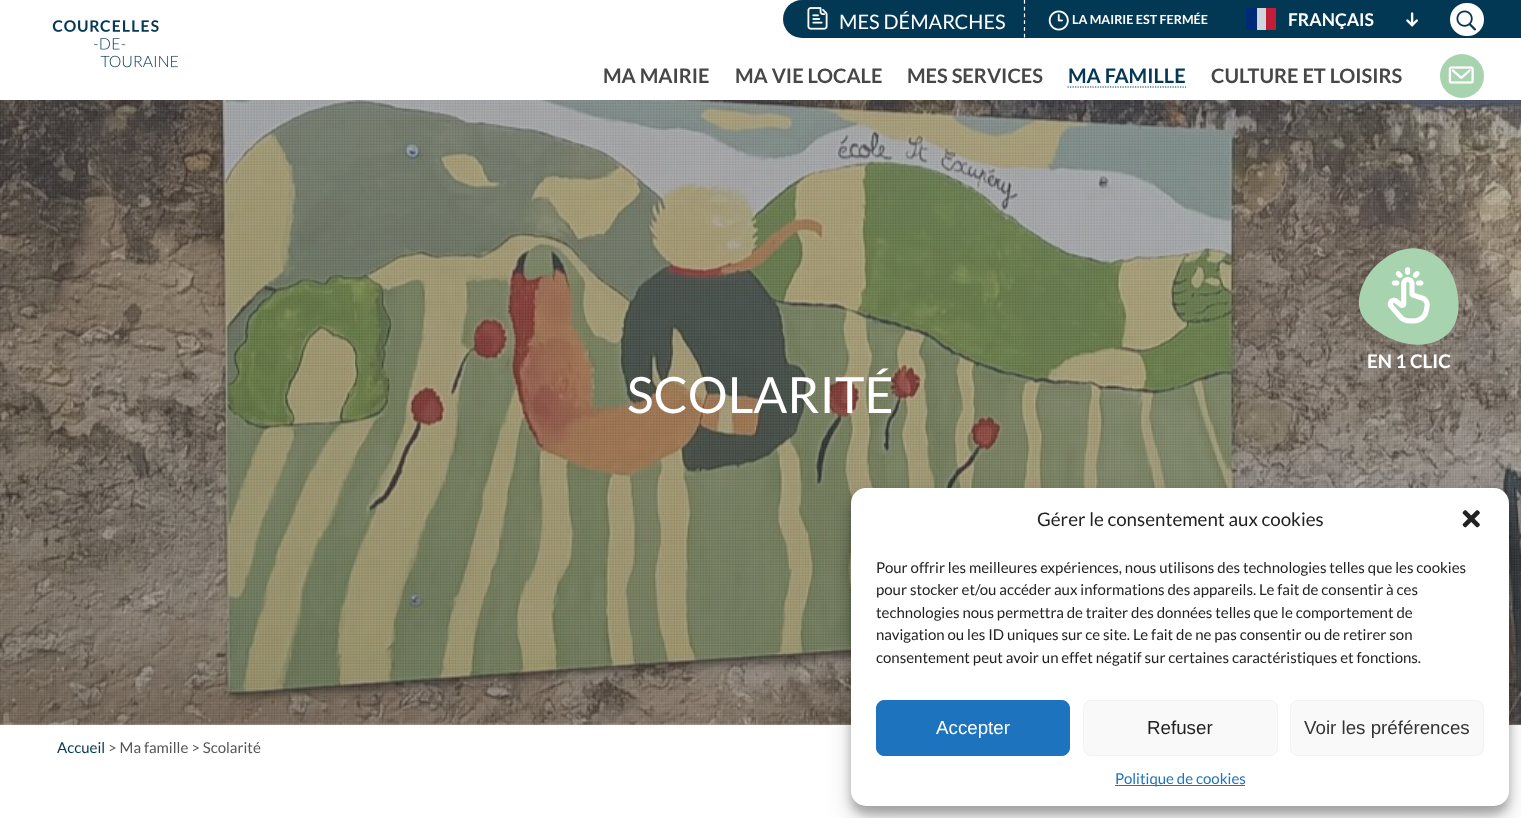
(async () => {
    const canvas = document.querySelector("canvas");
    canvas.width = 1521;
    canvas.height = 818;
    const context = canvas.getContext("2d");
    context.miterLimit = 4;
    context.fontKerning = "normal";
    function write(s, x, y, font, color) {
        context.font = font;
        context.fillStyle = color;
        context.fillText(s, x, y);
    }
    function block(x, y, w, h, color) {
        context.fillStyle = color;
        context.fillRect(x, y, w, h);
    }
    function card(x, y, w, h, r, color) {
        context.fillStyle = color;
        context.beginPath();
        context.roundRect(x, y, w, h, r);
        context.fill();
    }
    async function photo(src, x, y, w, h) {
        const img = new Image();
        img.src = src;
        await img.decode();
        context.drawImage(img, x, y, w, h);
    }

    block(0, 0, 1521, 818, "rgb(255, 255, 255)");
    context.fillStyle = "rgb(3, 56, 84)";
    context.beginPath();
    context.roundRect(783, 0, 701, 38, [19, 0, 0, 19]);
    context.fill();
    context.beginPath();
    context.moveTo(1024.5, 0);
    context.lineTo(1024.5, 37.5);
    context.strokeStyle = "rgb(255, 255, 255)";
    context.lineWidth = 1.2;
    context.setLineDash([3.75, 3]);
    context.stroke();
    await photo("media/1.png", 807, 7, 21, 23);
    write("MES DÉMARCHES", 839, 29, "20px Lato", "rgb(255, 255, 255)");
    await photo("media/2.png", 1048, 10, 21, 21);
    write("LA MAIRIE EST FERMÉE", 1072, 24, "bold 12.5px Lato", "rgb(255, 255, 255)");
    block(1257, 8, 9, 22, "rgb(205, 215, 221)");
    block(1246, 8, 11, 22, "rgb(1, 42, 118)");
    block(1266, 8, 10, 22, "rgb(195, 30, 55)");
    write("FRANÇAIS", 1288, 26, "bold 17.5px Lato", "rgb(255, 255, 255)");
    await photo("media/3.png", 1406, 12, 12, 15);
    context.beginPath();
    context.roundRect(1451.5, 4.5, 31, 30, 15);
    context.fill();
    context.lineWidth = 3;
    context.setLineDash([]);
    context.stroke();
    await photo("media/4.png", 1456, 10, 20, 21);
    await photo("media/5.png", 52, 20, 126, 48);
    write("MA MAIRIE", 603, 83, "bold 20px Lato", "rgb(71, 71, 71)");
    write("MA VIE LOCALE", 735, 83, "bold 20px Lato", "rgb(71, 71, 71)");
    write("MES SERVICES", 907, 83, "bold 20px Lato", "rgb(71, 71, 71)");
    context.beginPath();
    context.moveTo(1067.5, 87);
    context.lineTo(1186, 87);
    context.strokeStyle = "rgb(3, 56, 84)";
    context.lineWidth = 1.2;
    context.setLineDash([1.25, 1.25]);
    context.stroke();
    write("MA FAMILLE", 1068, 83, "bold 20px Lato", "rgb(3, 56, 84)");
    write("CULTURE ET LOISIRS", 1211, 83, "bold 20px Lato", "rgb(71, 71, 71)");
    context.fillStyle = "rgb(168, 211, 175)";
    context.beginPath();
    context.arc(1462, 76, 22, 0, Math.PI * 2);
    context.fill();
    await photo("media/6.png", 1448, 66, 26, 18);
    block(1484, 0, 37, 38, "rgb(3, 56, 84)");
    await photo("media/8.png", 0, 100, 1521, 625);
    await photo("media/9.png", 0, 100, 1521, 625);
    context.fillStyle = "rgb(168, 211, 175)";
    context.beginPath();
    context.moveTo(1362, 287);
    context.bezierCurveTo(1354, 308, 1362, 321, 1379, 332);
    context.bezierCurveTo(1395, 343, 1418, 349, 1437, 341);
    context.bezierCurveTo(1446, 337, 1453, 330, 1456, 321);
    context.bezierCurveTo(1459, 313, 1459, 305, 1458, 297);
    context.bezierCurveTo(1455, 258, 1418, 233, 1384, 259);
    context.bezierCurveTo(1374, 266, 1366, 276, 1362, 287);
    context.closePath();
    context.fill();
    await photo("media/7.png", 1387, 267, 43, 57);
    write("EN 1 CLIC", 1367, 368, "bold 18.75px Lato", "rgb(255, 255, 255)");
    write("SCOLARITÉ", 627, 413, "50px Lato", "rgb(255, 255, 255)");
    write("Accueil", 57, 753, "15px Lato", "rgb(3, 56, 84)");
    write("> Ma famille > Scolarité", 108, 753, "15px Lato", "rgb(85, 85, 85)");
    context.fillStyle = "rgba(0, 0, 0, 0.23)";
    context.filter = "blur(4px)";
    context.beginPath();
    context.roundRect(851, 495, 658, 319, 15);
    context.fill();
    context.filter = "none";
    context.fillStyle = "rgba(0, 0, 0, 0.19)";
    context.filter = "blur(12.5px)";
    context.beginPath();
    context.roundRect(851, 500, 658, 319, 15);
    context.fill();
    context.filter = "none";
    card(851, 488, 658, 318, 15, "rgb(255, 255, 255)");
    write("Gérer le consentement aux cookies", 1037, 526, "18.75px Lato", "rgb(34, 34, 34)");
    await photo("media/10.png", 1462, 510, 18, 18);
    write("Pour offrir les meilleures expériences, nous utilisons des technologies telles que les cookies", 876, 573, "15px Lato", "rgb(34, 34, 34)");
    write("pour stocker et/ou accéder aux informations des appareils. Le fait de consentir à ces", 876, 595, "15px Lato", "rgb(34, 34, 34)");
    write("technologies nous permettra de traiter des données telles que le comportement de", 876, 618, "15px Lato", "rgb(34, 34, 34)");
    write("navigation ou les ID uniques sur ce site. Le fait de ne pas consentir ou de retirer son", 876, 640, "15px Lato", "rgb(34, 34, 34)");
    write("consentement peut avoir un effet négatif sur certaines caractéristiques et fonctions.", 876, 663, "15px Lato", "rgb(34, 34, 34)");
    context.fillStyle = "rgb(30, 115, 190)";
    context.beginPath();
    context.roundRect(876.5, 700.5, 193, 55, 7.5);
    context.fill();
    context.strokeStyle = "rgb(30, 115, 190)";
    context.lineWidth = 1;
    context.setLineDash([]);
    context.stroke();
    write("Accepter", 936, 734, "18.75px Liberation Sans", "rgb(255, 255, 255)");
    context.fillStyle = "rgb(249, 249, 249)";
    context.beginPath();
    context.roundRect(1083.5, 700.5, 194, 55, 7.5);
    context.fill();
    context.strokeStyle = "rgb(242, 242, 242)";
    context.stroke();
    write("Refuser", 1147, 734, "18.75px Liberation Sans", "rgb(34, 34, 34)");
    context.fillStyle = "rgb(249, 249, 249)";
    context.beginPath();
    context.roundRect(1290.5, 700.5, 193, 55, 7.5);
    context.fill();
    context.stroke();
    write("Voir les préférences", 1304, 734, "18.75px Liberation Sans", "rgb(51, 51, 51)");
    block(1115, 785, 130, 1, "rgb(30, 115, 190)");
    write("Politique de cookies", 1115, 784, "15px Lato", "rgb(30, 115, 190)");
})();
